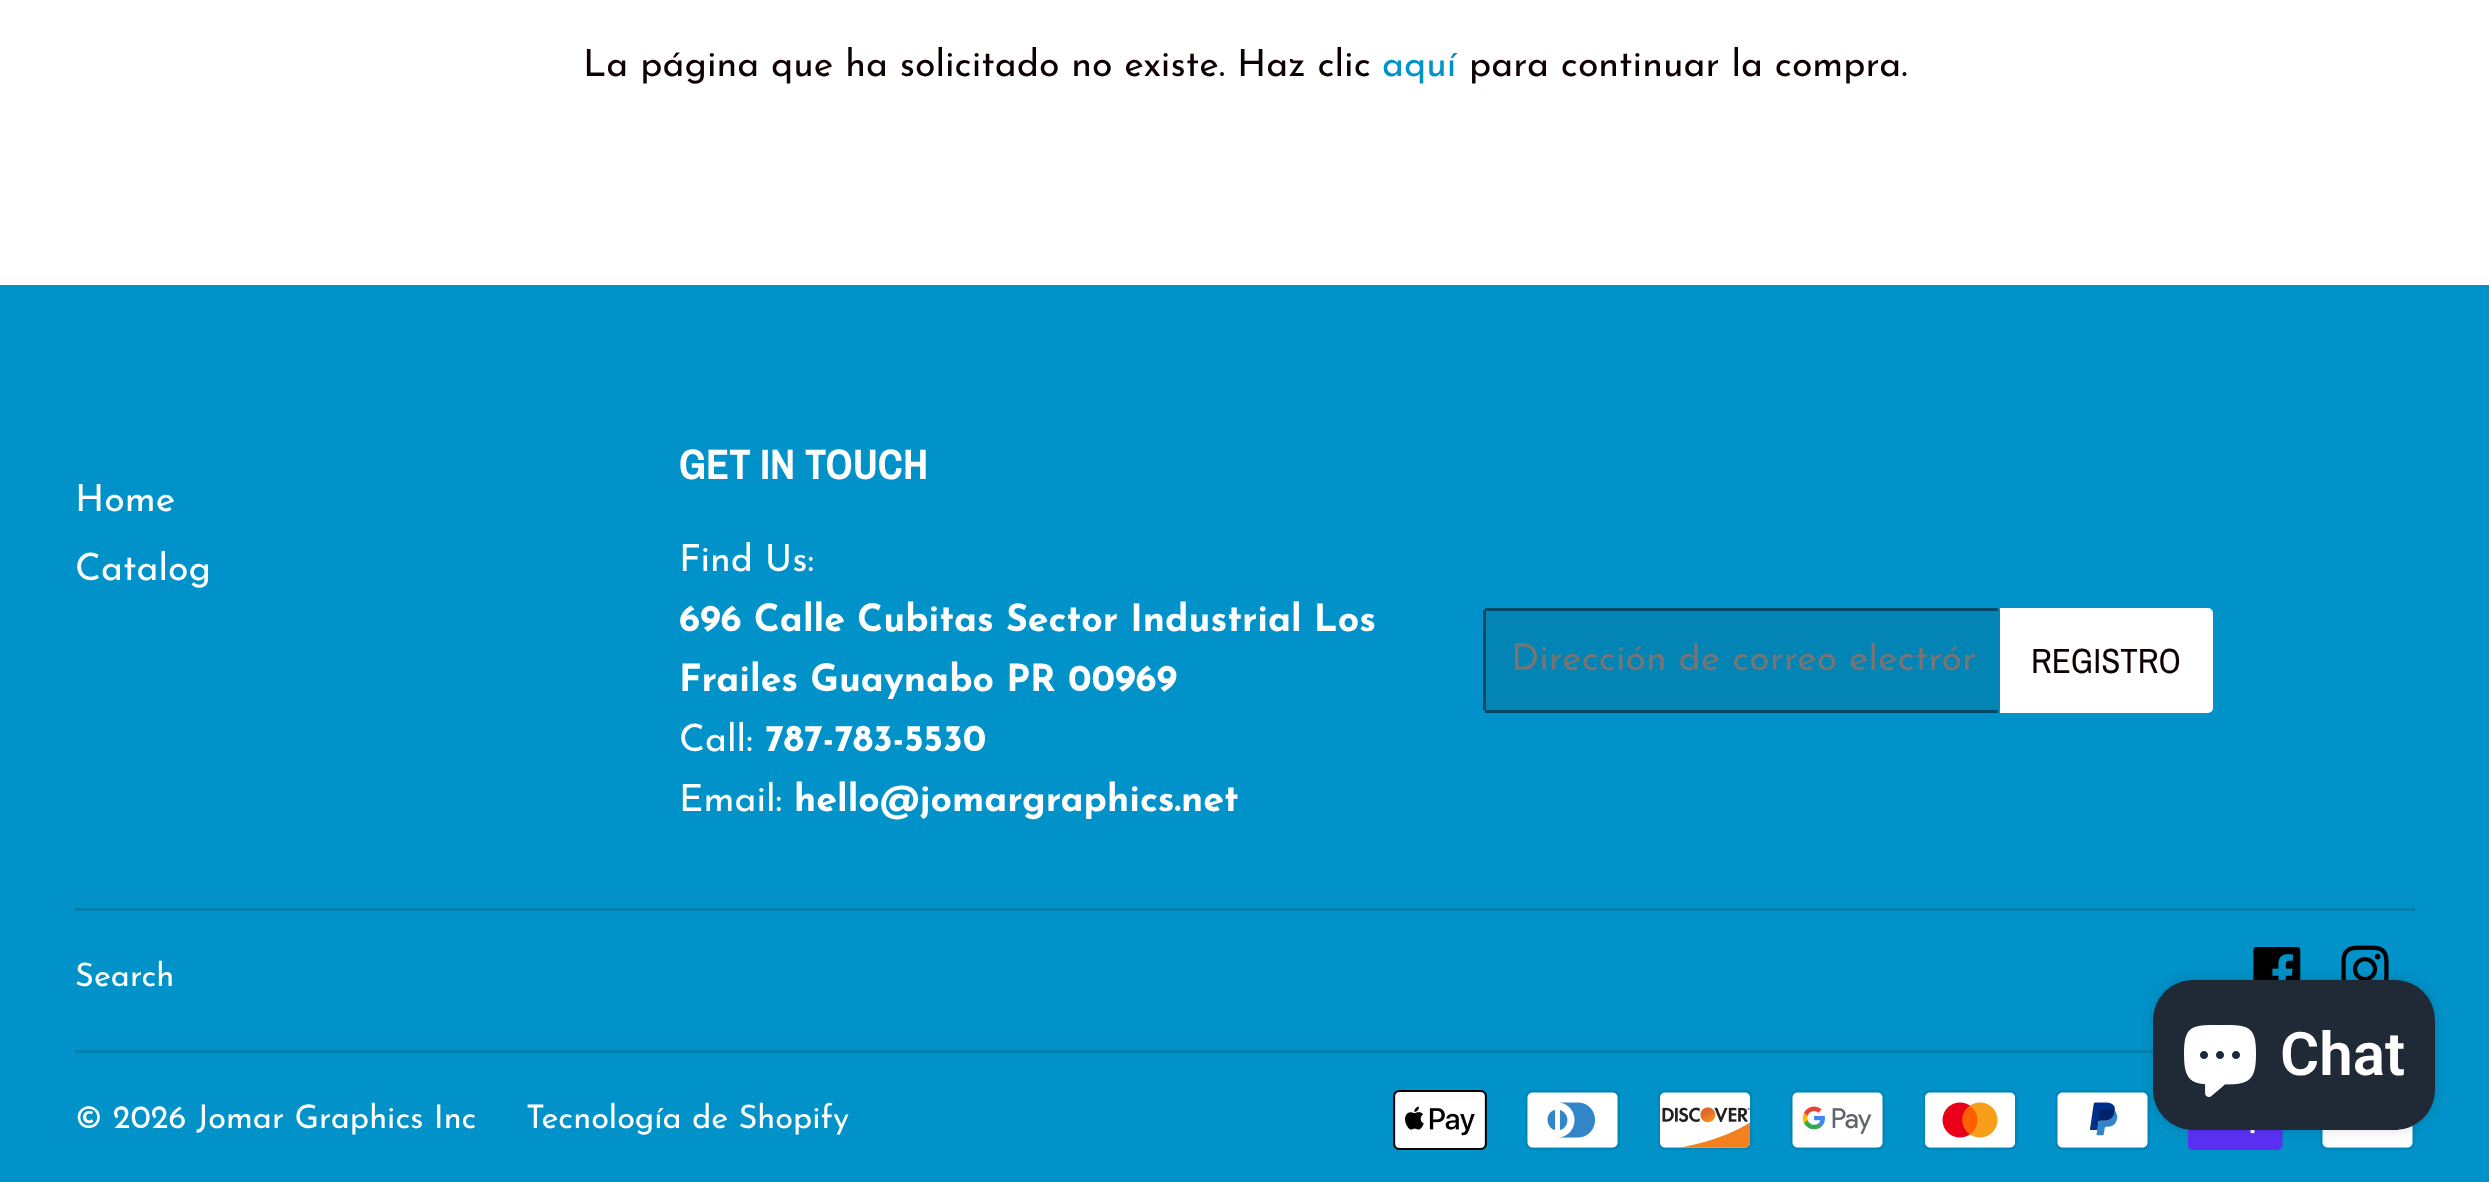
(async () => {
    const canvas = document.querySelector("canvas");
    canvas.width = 2489;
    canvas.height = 1182;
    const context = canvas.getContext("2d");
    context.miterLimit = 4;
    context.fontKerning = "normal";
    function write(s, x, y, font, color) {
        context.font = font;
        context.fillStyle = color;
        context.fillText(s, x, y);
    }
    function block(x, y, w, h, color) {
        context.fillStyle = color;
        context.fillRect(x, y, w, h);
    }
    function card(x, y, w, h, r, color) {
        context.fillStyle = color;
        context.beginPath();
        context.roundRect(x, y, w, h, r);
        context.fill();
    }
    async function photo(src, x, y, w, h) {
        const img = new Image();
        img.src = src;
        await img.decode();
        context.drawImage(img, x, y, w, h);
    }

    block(0, 0, 2489, 1182, "rgb(255, 255, 255)");
    write("La página que ha solicitado no existe. Haz clic", 583, 76, "37.5px Josefin Sans", "rgb(13, 1, 1)");
    write("aquí", 1382, 76, "37.5px Josefin Sans", "rgb(1, 146, 201)");
    write("para continuar la compra.", 1469, 76, "37.5px Josefin Sans", "rgb(13, 1, 1)");
    block(0, 285, 2489, 897, "rgb(1, 146, 201)");
    write("Home", 75, 511, "37.5px Josefin Sans", "rgb(255, 255, 255)");
    write("Catalog", 75, 580, "37.5px Josefin Sans", "rgb(255, 255, 255)");
    write("GET IN TOUCH", 679, 479, "bold 42.5px Archivo Narrow", "rgb(255, 255, 255)");
    write("Find Us:", 679, 571, "37.5px Josefin Sans", "rgb(255, 255, 255)");
    write("696 Calle Cubitas Sector Industrial Los", 679, 631, "bold 37.5px Josefin Sans", "rgb(255, 255, 255)");
    write("Frailes Guaynabo PR 00969", 679, 691, "bold 37.5px Josefin Sans", "rgb(255, 255, 255)");
    write("Call:", 679, 751, "37.5px Josefin Sans", "rgb(255, 255, 255)");
    write("787-783-5530", 765, 751, "bold 37.5px Josefin Sans", "rgb(255, 255, 255)");
    write("Email:", 679, 811, "37.5px Josefin Sans", "rgb(255, 255, 255)");
    write("hello@jomargraphics.net", 794, 811, "bold 37.5px Josefin Sans", "rgb(255, 255, 255)");
    card(1483, 608, 517, 105, 5, "rgb(2, 132, 181)");
    block(1485, 608, 513, 3, "rgb(0, 72, 100)");
    block(1485, 710, 513, 3, "rgb(0, 72, 100)");
    block(1483, 610, 3, 100, "rgb(0, 72, 100)");
    context.save();
    context.beginPath();
    context.rect(1510, 643, 465, 37);
    context.clip();
    write("Dirección de correo electrón", 1511, 670, "37.5px Josefin Sans", "rgb(117, 117, 117)");
    context.restore();
    context.fillStyle = "rgb(255, 255, 255)";
    context.beginPath();
    context.roundRect(2000, 608, 213, 105, [0, 5, 5, 0]);
    context.fill();
    write("REGISTRO", 2031, 673, "35px Archivo Narrow", "rgb(13, 1, 1)");
    block(75, 908, 2340, 3, "rgb(1, 128, 176)");
    write("Search", 75, 986, "32.5px Josefin Sans", "rgb(255, 255, 255)");
    await photo("media/1.png", 2253, 947, 48, 33);
    await photo("media/2.png", 2341, 945, 48, 35);
    block(75, 1050, 2078, 3, "rgb(1, 128, 176)");
    write("© 2026 Jomar Graphics Inc", 75, 1128, "32.5px Josefin Sans", "rgb(255, 255, 255)");
    write("Tecnología de Shopify", 526, 1128, "32.5px Josefin Sans", "rgb(255, 255, 255)");
    await photo("media/3.png", 1393, 1090, 94, 60);
    await photo("media/4.png", 1525, 1090, 95, 60);
    await photo("media/5.png", 1658, 1090, 95, 60);
    await photo("media/6.png", 1790, 1090, 95, 60);
    await photo("media/7.png", 1923, 1090, 95, 60);
    await photo("media/8.png", 2055, 1090, 95, 60);
    await photo("media/9.png", 2188, 1129, 95, 21);
    await photo("media/10.png", 2320, 1124, 95, 26);
    context.fillStyle = "rgba(0, 0, 0, 0.15)";
    context.filter = "blur(6px)";
    context.beginPath();
    context.roundRect(2153, 980, 282, 150, 40);
    context.fill();
    context.filter = "none";
    card(2153, 980, 282, 150, 40, "rgb(32, 42, 54)");
    await photo("media/11.png", 2184, 1025, 72, 72);
    write("Chat", 2280, 1075, "600 60px Roboto", "rgb(255, 255, 255)");
})();
